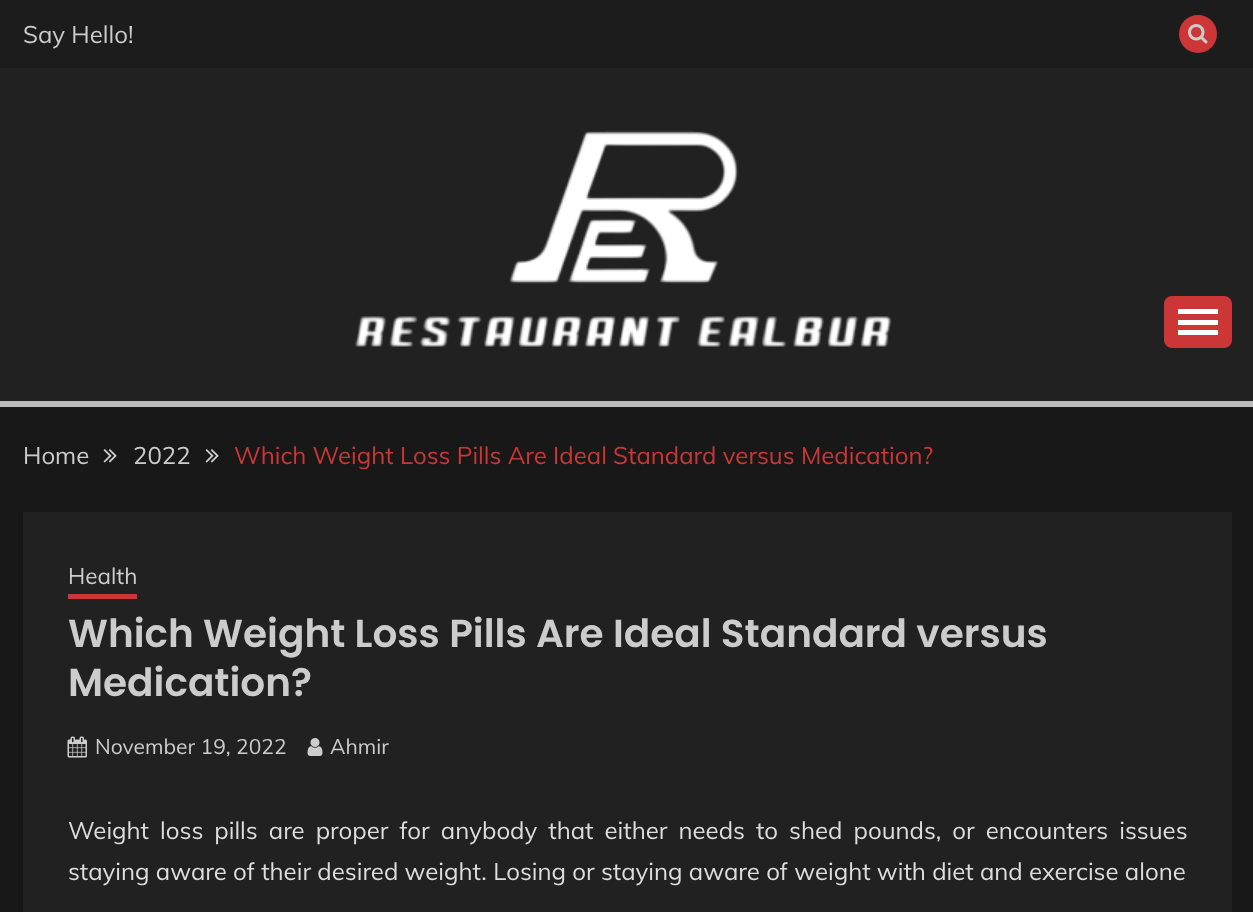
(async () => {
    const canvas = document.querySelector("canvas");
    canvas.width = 1253;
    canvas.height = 912;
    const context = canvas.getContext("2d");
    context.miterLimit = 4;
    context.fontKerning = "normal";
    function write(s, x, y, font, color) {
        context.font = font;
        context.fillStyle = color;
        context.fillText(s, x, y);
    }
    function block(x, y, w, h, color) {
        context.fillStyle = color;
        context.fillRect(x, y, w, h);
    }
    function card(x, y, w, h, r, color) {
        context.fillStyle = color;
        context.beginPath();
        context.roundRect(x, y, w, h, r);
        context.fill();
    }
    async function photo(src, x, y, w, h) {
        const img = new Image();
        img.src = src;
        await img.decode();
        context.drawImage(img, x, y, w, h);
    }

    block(0, 0, 1253, 912, "rgb(24, 24, 24)");
    block(0, 68, 1253, 333, "rgb(33, 33, 33)");
    block(0, 0, 1253, 68, "rgb(28, 28, 28)");
    write("Say Hello!", 23, 43, "24px Muli", "rgb(204, 204, 204)");
    context.fillStyle = "rgb(205, 54, 54)";
    context.beginPath();
    context.arc(1198, 34, 19, 0, Math.PI * 2);
    context.fill();
    await photo("media/1.png", 1188, 24, 20, 20);
    block(0, 401, 1253, 6, "rgb(187, 187, 187)");
    await photo("media/2.png", 355, 130, 537, 217);
    card(1164, 296, 68, 52, 8, "rgb(205, 54, 54)");
    block(1178, 309, 40, 5, "rgb(255, 255, 255)");
    block(1178, 320, 40, 5, "rgb(255, 255, 255)");
    block(1178, 330, 40, 5, "rgb(255, 255, 255)");
    write("Home", 23, 464, "24px Muli", "rgb(204, 204, 204)");
    await photo("media/3.png", 103, 449, 14, 14);
    write("2022", 133, 464, "24px Muli", "rgb(204, 204, 204)");
    await photo("media/3.png", 205, 449, 14, 14);
    write("Which Weight Loss Pills Are Ideal Standard versus Medication?", 234, 464, "24px Muli", "rgb(205, 54, 54)");
    block(23, 512, 1209, 400, "rgb(33, 33, 33)");
    write("Health", 68, 584, "22.5px Muli", "rgb(204, 204, 204)");
    block(68, 594, 69, 5, "rgb(205, 54, 54)");
    write("Which Weight Loss Pills Are Ideal Standard versus", 68, 647, "600 39px Poppins", "rgb(204, 204, 204)");
    write("Medication?", 68, 696, "600 39px Poppins", "rgb(204, 204, 204)");
    await photo("media/4.png", 67, 736, 20, 22);
    write("November 19, 2022", 95, 754, "21px Muli", "rgb(204, 204, 204)");
    await photo("media/5.png", 307, 738, 16, 18);
    write("Ahmir", 330, 754, "21px Muli", "rgb(204, 204, 204)");
    context.wordSpacing = "4.75px";
    write("Weight loss pills are proper for anybody that either needs to shed pounds, or encounters issues", 68, 839, "24px Muli", "rgb(221, 221, 221)");
    context.wordSpacing = "0px";
    write("staying aware of their desired weight. Losing or staying aware of weight with diet and exercise alone", 68, 880, "24px Muli", "rgb(221, 221, 221)");
})();
